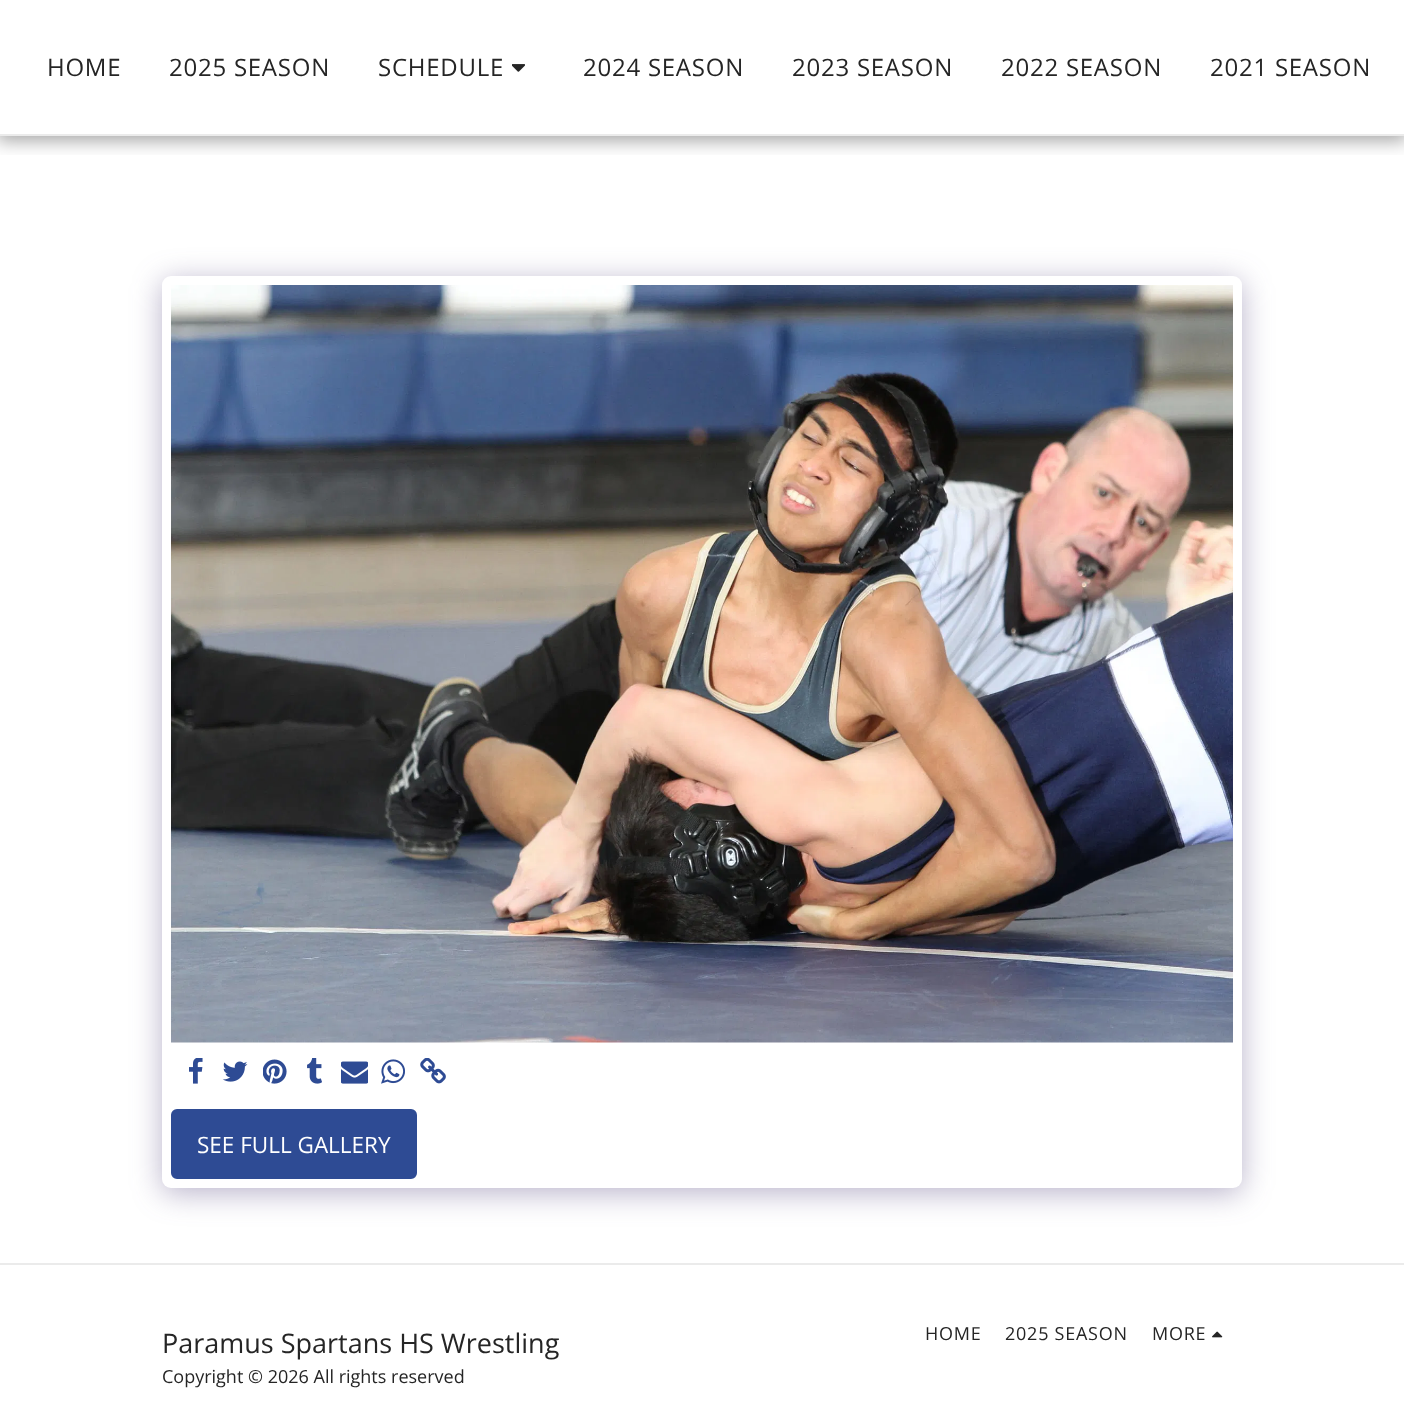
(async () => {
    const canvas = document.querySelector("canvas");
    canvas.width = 1404;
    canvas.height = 1406;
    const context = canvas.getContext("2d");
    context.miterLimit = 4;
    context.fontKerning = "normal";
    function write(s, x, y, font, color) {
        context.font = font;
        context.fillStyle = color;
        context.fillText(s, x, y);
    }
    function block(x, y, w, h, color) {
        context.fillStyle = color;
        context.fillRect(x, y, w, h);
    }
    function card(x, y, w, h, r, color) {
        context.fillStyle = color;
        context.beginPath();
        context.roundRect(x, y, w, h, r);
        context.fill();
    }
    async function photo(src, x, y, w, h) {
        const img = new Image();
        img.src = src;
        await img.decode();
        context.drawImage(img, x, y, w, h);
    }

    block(0, 0, 1404, 1406, "rgb(255, 255, 255)");
    context.save();
    context.beginPath();
    context.rect(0, 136, 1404, 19);
    context.clip();
    context.fillStyle = "rgba(0, 0, 0, 0.35)";
    context.filter = "blur(9px)";
    context.beginPath();
    context.rect(-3, 0, 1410, 141);
    context.fill();
    context.filter = "none";
    context.restore();
    block(0, 134, 1404, 2, "rgb(235, 235, 235)");
    context.letterSpacing = "0.75px";
    write("HOME", 47, 76, "24px Open Sans", "rgb(37, 37, 37)");
    write("2025 SEASON", 169, 76, "24px Open Sans", "rgb(37, 37, 37)");
    write("SCHEDULE", 378, 76, "24px Open Sans", "rgb(37, 37, 37)");
    await photo("media/1.png", 512, 64, 13, 8);
    write("2024 SEASON", 583, 76, "24px Open Sans", "rgb(37, 37, 37)");
    write("2023 SEASON", 792, 76, "24px Open Sans", "rgb(37, 37, 37)");
    write("2022 SEASON", 1001, 76, "24px Open Sans", "rgb(37, 37, 37)");
    write("2021 SEASON", 1210, 76, "24px Open Sans", "rgb(37, 37, 37)");
    context.fillStyle = "rgba(77, 63, 122, 0.4)";
    context.filter = "blur(15px)";
    context.beginPath();
    context.roundRect(162, 281, 1080, 912, 9);
    context.fill();
    context.filter = "none";
    card(162, 276, 1080, 912, 9, "rgb(255, 255, 255)");
    await photo("media/2.png", 171, 285, 1062, 758);
    await photo("media/3.png", 189, 1058, 14, 26);
    await photo("media/4.png", 222, 1061, 26, 21);
    await photo("media/5.png", 263, 1059, 24, 25);
    await photo("media/6.png", 307, 1058, 15, 26);
    await photo("media/7.png", 341, 1061, 27, 23);
    await photo("media/8.png", 381, 1059, 24, 25);
    await photo("media/9.png", 420, 1058, 26, 26);
    context.fillStyle = "rgb(46, 75, 148)";
    context.beginPath();
    context.roundRect(172, 1110, 244, 68, 5);
    context.fill();
    context.strokeStyle = "rgb(46, 75, 148)";
    context.lineWidth = 2;
    context.stroke();
    context.letterSpacing = "0px";
    write("SEE FULL GALLERY", 197, 1153, "22.5px Open Sans", "rgb(255, 255, 255)");
    block(0, 1263, 1404, 2, "rgb(235, 235, 235)");
    write("Paramus Spartans HS Wrestling", 162, 1353, "27px Open Sans", "rgb(37, 37, 37)");
    write("Copyright © 2026 All rights reserved", 162, 1383, "18px Open Sans", "rgb(37, 37, 37)");
    context.letterSpacing = "0.75px";
    write("HOME", 925, 1340, "18px Open Sans", "rgb(37, 37, 37)");
    write("2025 SEASON", 1005, 1340, "18px Open Sans", "rgb(37, 37, 37)");
    write("MORE", 1152, 1340, "18px Open Sans", "rgb(37, 37, 37)");
    await photo("media/10.png", 1212, 1331, 11, 7);
})();
